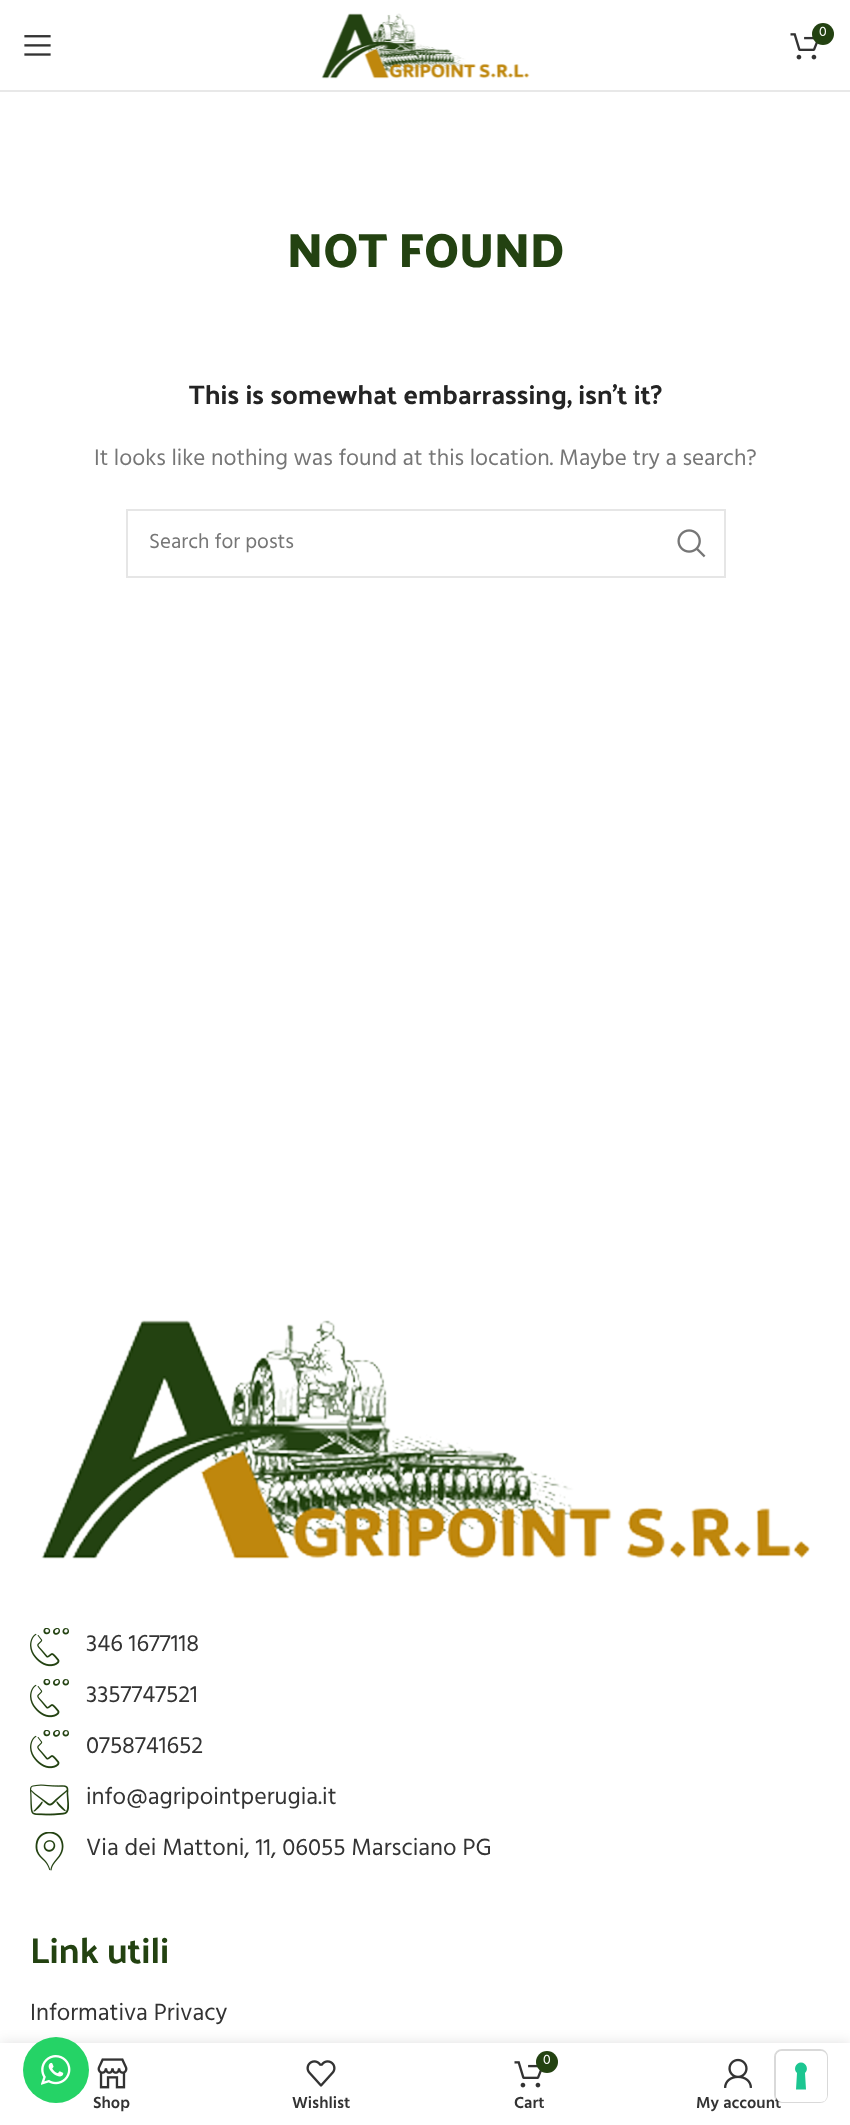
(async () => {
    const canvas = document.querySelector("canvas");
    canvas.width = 850;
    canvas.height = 2125;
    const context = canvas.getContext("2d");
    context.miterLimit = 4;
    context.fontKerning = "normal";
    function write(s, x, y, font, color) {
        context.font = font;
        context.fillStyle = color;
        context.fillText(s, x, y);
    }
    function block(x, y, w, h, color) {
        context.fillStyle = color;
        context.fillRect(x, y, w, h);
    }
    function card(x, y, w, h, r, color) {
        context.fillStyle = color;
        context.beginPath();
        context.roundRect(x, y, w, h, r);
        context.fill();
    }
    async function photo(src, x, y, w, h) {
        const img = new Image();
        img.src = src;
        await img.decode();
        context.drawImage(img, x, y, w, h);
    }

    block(0, 0, 850, 2125, "rgb(255, 255, 255)");
    block(0, 90, 850, 2, "rgb(232, 232, 232)");
    await photo("media/1.png", 321, 13, 209, 66);
    await photo("media/2.png", 790, 33, 28, 27);
    context.fillStyle = "rgb(35, 66, 17)";
    context.beginPath();
    context.arc(823, 34, 11, 0, Math.PI * 2);
    context.fill();
    write("0", 819, 36, "14px Hind", "rgb(255, 255, 255)");
    await photo("media/3.png", 24, 35, 27, 21);
    write("NOT FOUND", 287, 267, "600 48px Palanquin Dark", "rgb(35, 66, 17)");
    write("This is somewhat embarrassing, isn’t it?", 189, 404, "27px Palanquin Dark", "rgb(36, 36, 36)");
    write("It looks like nothing was found at this location. Maybe try a search?", 94, 465, "23.1px Hind", "rgb(118, 118, 118)");
    context.strokeStyle = "rgb(230, 230, 230)";
    context.lineWidth = 2;
    context.strokeRect(127, 510, 598, 67);
    write("Search for posts", 149, 548, "21px Hind", "rgb(118, 118, 118)");
    await photo("media/4.png", 677, 529, 29, 29);
    await photo("media/5.png", 41, 1320, 769, 239);
    await photo("media/6.png", 30, 1628, 39, 39);
    write("346 1677118", 86, 1651, "24px Hind", "rgb(51, 51, 51)");
    await photo("media/6.png", 30, 1679, 39, 39);
    write("3357747521", 86, 1702, "24px Hind", "rgb(51, 51, 51)");
    await photo("media/6.png", 30, 1730, 39, 39);
    write("0758741652", 86, 1753, "24px Hind", "rgb(51, 51, 51)");
    await photo("media/7.png", 30, 1784, 39, 32);
    write("info@agripointperugia.it", 86, 1804, "24px Hind", "rgb(51, 51, 51)");
    await photo("media/8.png", 35, 1832, 29, 39);
    write("Via dei Mattoni, 11, 06055 Marsciano PG", 86, 1855, "24px Hind", "rgb(51, 51, 51)");
    write("Link utili", 30, 1963, "36px Palanquin Dark", "rgb(35, 66, 17)");
    write("Informativa Privacy", 30, 2020, "24px Hind", "rgb(51, 51, 51)");
    context.fillStyle = "rgba(0, 0, 0, 0.12)";
    context.filter = "blur(7px)";
    context.beginPath();
    context.rect(0, 2043, 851, 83);
    context.fill();
    context.filter = "none";
    block(0, 2043, 850, 82, "rgb(255, 255, 255)");
    context.fillStyle = "rgb(37, 211, 102)";
    context.beginPath();
    context.arc(56, 2070, 33, 0, Math.PI * 2);
    context.fill();
    await photo("media/9.png", 41, 2055, 30, 30);
    await photo("media/10.png", 97, 2058, 31, 31);
    write("Shop", 93, 2108, "600 16.5px Hind", "rgb(51, 51, 51)");
    await photo("media/11.png", 306, 2060, 30, 27);
    write("Wishlist", 292, 2108, "600 16.5px Hind", "rgb(51, 51, 51)");
    await photo("media/2.png", 514, 2061, 28, 27);
    context.fillStyle = "rgb(35, 66, 17)";
    context.beginPath();
    context.arc(547, 2062, 11, 0, Math.PI * 2);
    context.fill();
    write("0", 543, 2064, "14px Hind", "rgb(255, 255, 255)");
    write("Cart", 514, 2108, "600 16.5px Hind", "rgb(51, 51, 51)");
    await photo("media/12.png", 724, 2058, 28, 30);
    write("My account", 696, 2108, "600 16.5px Hind", "rgb(51, 51, 51)");
    context.beginPath();
    context.roundRect(775, 2050, 52, 52, 7);
    context.strokeStyle = "rgba(0, 0, 0, 0.15)";
    context.stroke();
    card(776, 2051, 51, 51, 6, "rgb(255, 255, 255)");
    context.fillStyle = "rgb(28, 198, 145)";
    context.beginPath();
    context.moveTo(801, 2062.5);
    context.bezierCurveTo(806.5, 2062.5, 809, 2069.5, 805, 2073);
    context.lineTo(806, 2089.5);
    context.lineTo(796, 2089.5);
    context.lineTo(797, 2073);
    context.bezierCurveTo(793, 2069.5, 795.5, 2062.5, 801, 2062.5);
    context.closePath();
    context.fill("evenodd");
})();
